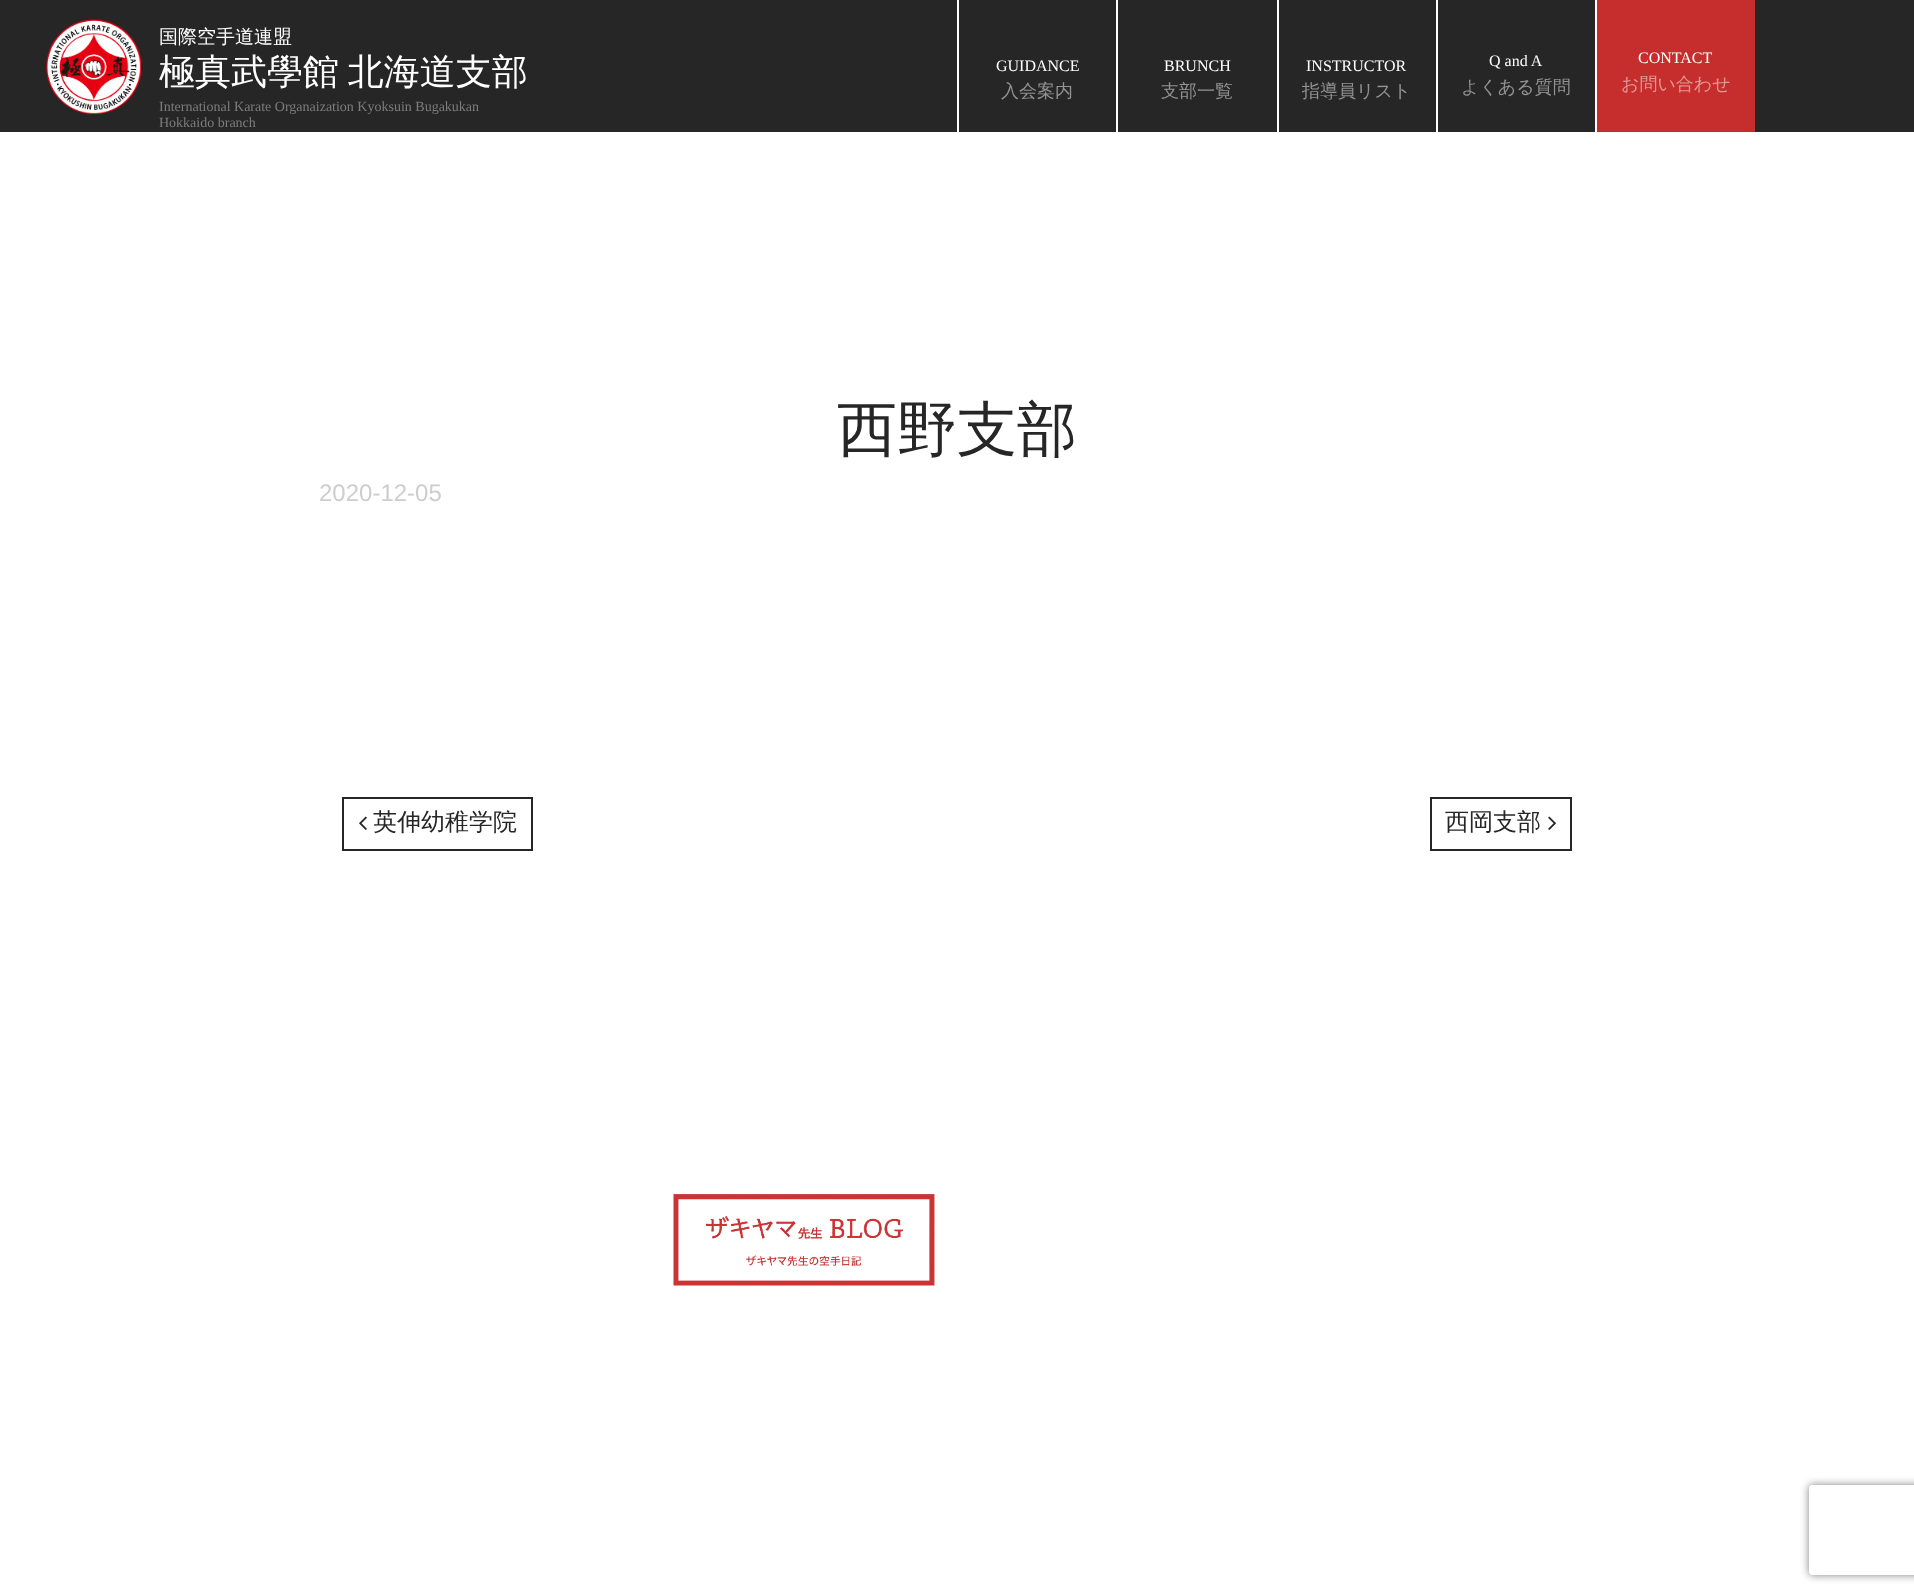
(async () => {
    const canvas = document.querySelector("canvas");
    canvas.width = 1914;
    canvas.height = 1596;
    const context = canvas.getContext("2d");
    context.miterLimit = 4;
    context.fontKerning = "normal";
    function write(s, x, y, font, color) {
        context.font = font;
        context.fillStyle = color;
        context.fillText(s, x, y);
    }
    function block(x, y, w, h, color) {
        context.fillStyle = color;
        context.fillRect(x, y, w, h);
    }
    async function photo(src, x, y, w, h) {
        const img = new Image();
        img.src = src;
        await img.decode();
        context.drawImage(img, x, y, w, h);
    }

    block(0, 0, 1914, 1596, "rgb(255, 255, 255)");
    block(0, 0, 1914, 132, "rgb(38, 38, 38)");
    await photo("media/1.png", 45, 19, 96, 95);
    write("国際空手道連盟", 159, 43, "500 19px WenQuanYi Zen Hei", "rgb(255, 255, 255)");
    context.wordSpacing = "-2px";
    write("極真武學館 北海道支部", 159, 84, "500 36px WenQuanYi Zen Hei", "rgb(255, 255, 255)");
    context.wordSpacing = "0px";
    write("International Karate Organaization Kyoksuin Bugakukan", 159, 111, "14px Liberation Serif", "rgb(125, 125, 125)");
    write("Hokkaido branch", 159, 127, "14px Liberation Serif", "rgb(125, 125, 125)");
    block(957, 0, 2, 132, "rgb(255, 255, 255)");
    write("GUIDANCE", 996, 71, "16px Liberation Serif", "rgb(255, 255, 255)");
    write("入会案内", 1001, 97, "500 18px WenQuanYi Zen Hei", "rgb(147, 147, 147)");
    block(1116, 0, 2, 132, "rgb(255, 255, 255)");
    write("BRUNCH", 1164, 71, "16px Liberation Serif", "rgb(255, 255, 255)");
    write("支部一覧", 1161, 97, "500 18px WenQuanYi Zen Hei", "rgb(147, 147, 147)");
    block(1277, 0, 2, 132, "rgb(255, 255, 255)");
    write("INSTRUCTOR", 1306, 71, "16px Liberation Serif", "rgb(255, 255, 255)");
    write("指導員リスト", 1302, 97, "500 18px WenQuanYi Zen Hei", "rgb(147, 147, 147)");
    block(1436, 0, 2, 132, "rgb(255, 255, 255)");
    write("Q and A", 1489, 66, "16px Liberation Serif", "rgb(255, 255, 255)");
    write("よくある質問", 1461, 93, "500 18px WenQuanYi Zen Hei", "rgb(147, 147, 147)");
    block(1597, 0, 158, 132, "rgb(198, 46, 46)");
    block(1595, 0, 2, 132, "rgb(255, 255, 255)");
    write("CONTACT", 1638, 63, "16px Liberation Serif", "rgb(255, 255, 255)");
    write("お問い合わせ", 1621, 90, "500 18px WenQuanYi Zen Hei", "rgb(227, 151, 151)");
    write("西野支部", 837, 450, "500 60px WenQuanYi Zen Hei", "rgb(38, 38, 38)");
    write("2020-12-05", 319, 501, "24px Liberation Sans", "rgb(205, 205, 205)");
    context.strokeStyle = "rgb(38, 38, 38)";
    context.lineWidth = 2;
    context.strokeRect(343, 798, 189, 52);
    await photo("media/2.png", 359, 816, 8, 14);
    write("英伸幼稚学院", 373, 830, "500 24px WenQuanYi Zen Hei", "rgb(38, 38, 38)");
    context.strokeRect(1431, 798, 140, 52);
    write("西岡支部", 1445, 830, "500 24px WenQuanYi Zen Hei", "rgb(38, 38, 38)");
    await photo("media/3.png", 1548, 816, 8, 14);
    await photo("media/4.png", 673, 1194, 262, 92);
    context.save();
    context.beginPath();
    context.moveTo(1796, 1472);
    context.lineTo(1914, 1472);
    context.lineTo(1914, 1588);
    context.lineTo(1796, 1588);
    context.closePath();
    context.moveTo(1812, 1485);
    context.lineTo(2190, 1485);
    context.bezierCurveTo(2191.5, 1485, 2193, 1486.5, 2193, 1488);
    context.lineTo(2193, 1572);
    context.bezierCurveTo(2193, 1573.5, 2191.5, 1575, 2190, 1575);
    context.lineTo(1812, 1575);
    context.bezierCurveTo(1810.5, 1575, 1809, 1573.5, 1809, 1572);
    context.lineTo(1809, 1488);
    context.bezierCurveTo(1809, 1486.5, 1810.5, 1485, 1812, 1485);
    context.closePath();
    context.clip("evenodd");
    context.fillStyle = "rgb(128, 128, 128)";
    context.filter = "blur(4px)";
    context.beginPath();
    context.roundRect(1809, 1485, 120, 90, 3);
    context.fill();
    context.filter = "none";
    context.restore();
})();
